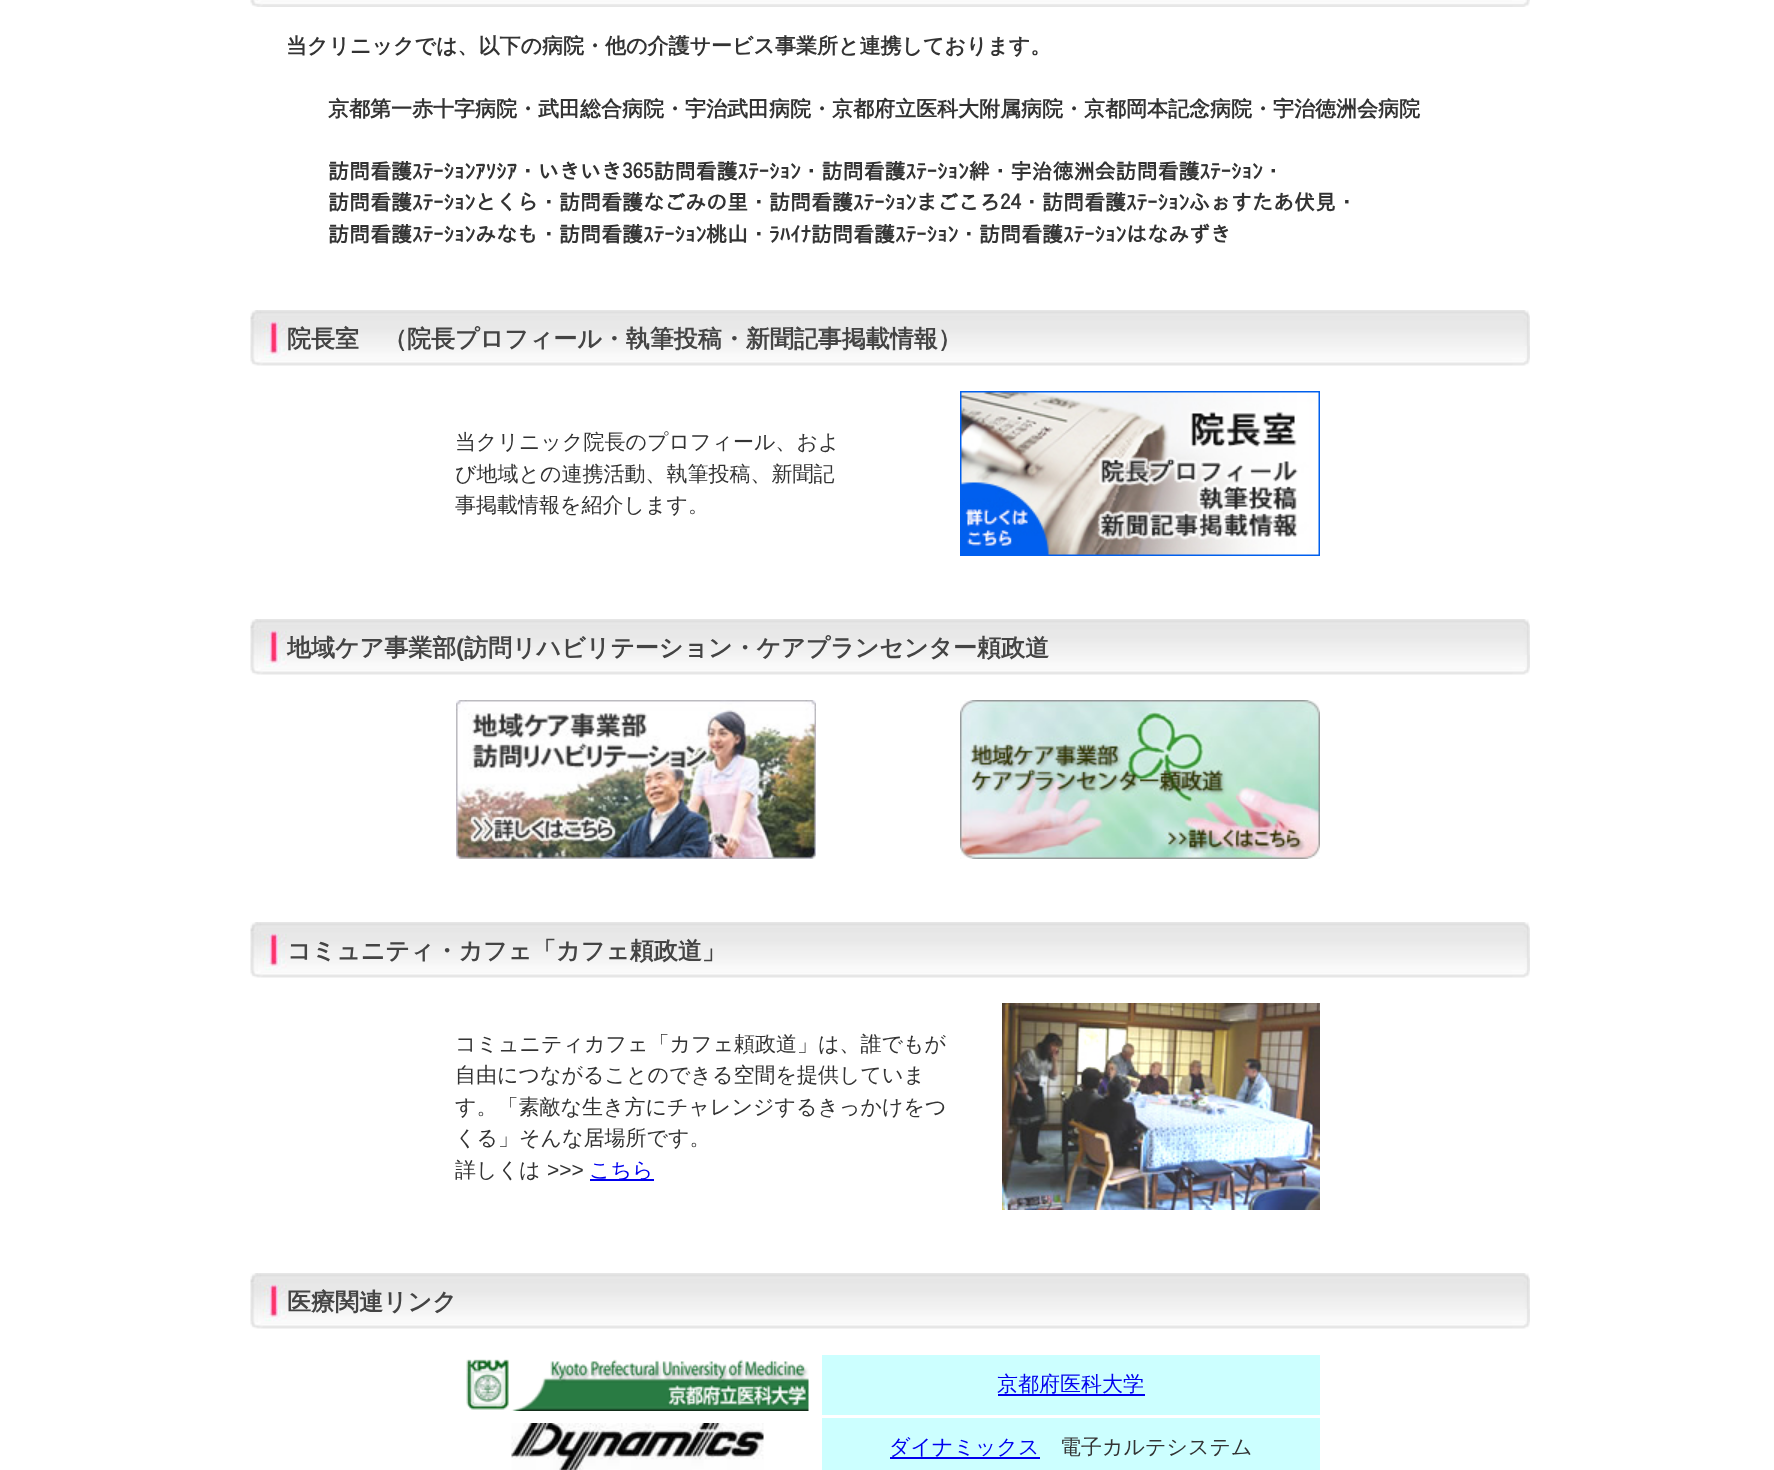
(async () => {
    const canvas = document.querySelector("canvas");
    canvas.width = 1774;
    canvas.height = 1470;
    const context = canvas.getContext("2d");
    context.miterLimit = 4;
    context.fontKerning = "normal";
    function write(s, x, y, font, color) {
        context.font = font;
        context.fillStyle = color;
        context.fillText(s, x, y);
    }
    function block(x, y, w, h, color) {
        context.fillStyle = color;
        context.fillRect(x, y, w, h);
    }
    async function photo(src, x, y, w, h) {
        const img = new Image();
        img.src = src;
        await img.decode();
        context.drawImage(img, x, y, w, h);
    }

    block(0, 0, 1774, 1470, "rgb(255, 255, 255)");
    await photo("media/1.png", 250, 0, 1280, 7);
    write("当クリニックでは、以下の病院・他の介護サービス事業所と連携しております。", 286, 53, "bold 21px WenQuanYi Zen Hei", "rgb(51, 51, 51)");
    write("京都第一赤十字病院・武田総合病院・宇治武田病院・京都府立医科大附属病院・京都岡本記念病院・宇治徳洲会病院", 328, 116, "bold 21px WenQuanYi Zen Hei", "rgb(51, 51, 51)");
    write("訪問看護ｽﾃｰｼｮﾝｱｿｼｱ・いきいき365訪問看護ｽﾃｰｼｮﾝ・訪問看護ｽﾃｰｼｮﾝ絆・宇治徳洲会訪問看護ｽﾃｰｼｮﾝ・", 328, 179, "bold 21px IPAGothic", "rgb(51, 51, 51)");
    write("訪問看護ｽﾃｰｼｮﾝとくら・訪問看護なごみの里・訪問看護ｽﾃｰｼｮﾝまごころ24・訪問看護ｽﾃｰｼｮﾝふぉすたあ伏見・", 328, 210, "bold 21px IPAGothic", "rgb(51, 51, 51)");
    write("訪問看護ｽﾃｰｼｮﾝみなも・訪問看護ｽﾃｰｼｮﾝ桃山・ﾗﾊｲﾅ訪問看護ｽﾃｰｼｮﾝ・訪問看護ｽﾃｰｼｮﾝはなみずき", 328, 242, "bold 21px IPAGothic", "rgb(51, 51, 51)");
    await photo("media/2.png", 250, 310, 1280, 56);
    write("院長室　（院長プロフィール・執筆投稿・新聞記事掲載情報）", 287, 347, "bold 24px WenQuanYi Zen Hei", "rgb(68, 68, 68)");
    write("当クリニック院長のプロフィール、およ", 455, 449, "500 21px WenQuanYi Zen Hei", "rgb(51, 51, 51)");
    write("び地域との連携活動、執筆投稿、新聞記", 455, 481, "500 21px WenQuanYi Zen Hei", "rgb(51, 51, 51)");
    write("事掲載情報を紹介します。", 455, 512, "500 21px WenQuanYi Zen Hei", "rgb(51, 51, 51)");
    await photo("media/3.png", 960, 391, 360, 165);
    await photo("media/2.png", 250, 619, 1280, 56);
    write("地域ケア事業部", 287, 656, "bold 24px WenQuanYi Zen Hei", "rgb(68, 68, 68)");
    write("(", 456, 656, "bold 24px Liberation Sans", "rgb(68, 68, 68)");
    write("訪問リハビリテーション・ケアプランセンター頼政道", 464, 656, "bold 24px WenQuanYi Zen Hei", "rgb(68, 68, 68)");
    await photo("media/4.png", 456, 700, 360, 159);
    await photo("media/5.png", 960, 700, 360, 159);
    await photo("media/2.png", 250, 922, 1280, 56);
    write("コミュニティ・カフェ「カフェ頼政道」", 287, 959, "bold 24px WenQuanYi Zen Hei", "rgb(68, 68, 68)");
    write("コミュニティカフェ「カフェ頼政道」は、誰でもが", 455, 1051, "500 21px WenQuanYi Zen Hei", "rgb(51, 51, 51)");
    write("自由につながることのできる空間を提供していま", 455, 1082, "500 21px WenQuanYi Zen Hei", "rgb(51, 51, 51)");
    write("す。「素敵な生き方にチャレンジするきっかけをつ", 455, 1114, "500 21px WenQuanYi Zen Hei", "rgb(51, 51, 51)");
    write("くる」そんな居場所です。", 455, 1145, "500 21px WenQuanYi Zen Hei", "rgb(51, 51, 51)");
    write("詳しくは", 455, 1177, "500 21px WenQuanYi Zen Hei", "rgb(51, 51, 51)");
    write(">>>", 547, 1177, "21px Liberation Sans", "rgb(51, 51, 51)");
    block(590, 1179, 64, 2, "rgb(0, 0, 238)");
    write("こちら", 589, 1177, "500 21px WenQuanYi Zen Hei", "rgb(0, 0, 238)");
    await photo("media/6.png", 1002, 1003, 318, 207);
    await photo("media/2.png", 250, 1273, 1280, 56);
    write("医療関連リンク", 287, 1310, "bold 24px WenQuanYi Zen Hei", "rgb(68, 68, 68)");
    await photo("media/7.png", 466, 1359, 343, 52);
    block(822, 1355, 498, 60, "rgb(204, 255, 255)");
    write("京都府医科大学", 997, 1391, "500 21px WenQuanYi Zen Hei", "rgb(0, 0, 238)");
    block(998, 1394, 147, 2, "rgb(0, 0, 238)");
    await photo("media/8.png", 511, 1423, 253, 47);
    block(822, 1418, 498, 52, "rgb(204, 255, 255)");
    block(890, 1457, 150, 2, "rgb(0, 0, 238)");
    write("ダイナミックス", 889, 1454, "500 21px WenQuanYi Zen Hei", "rgb(0, 0, 238)");
    write("電子カルテシステム", 1060, 1454, "500 21px WenQuanYi Zen Hei", "rgb(51, 51, 51)");
})();
